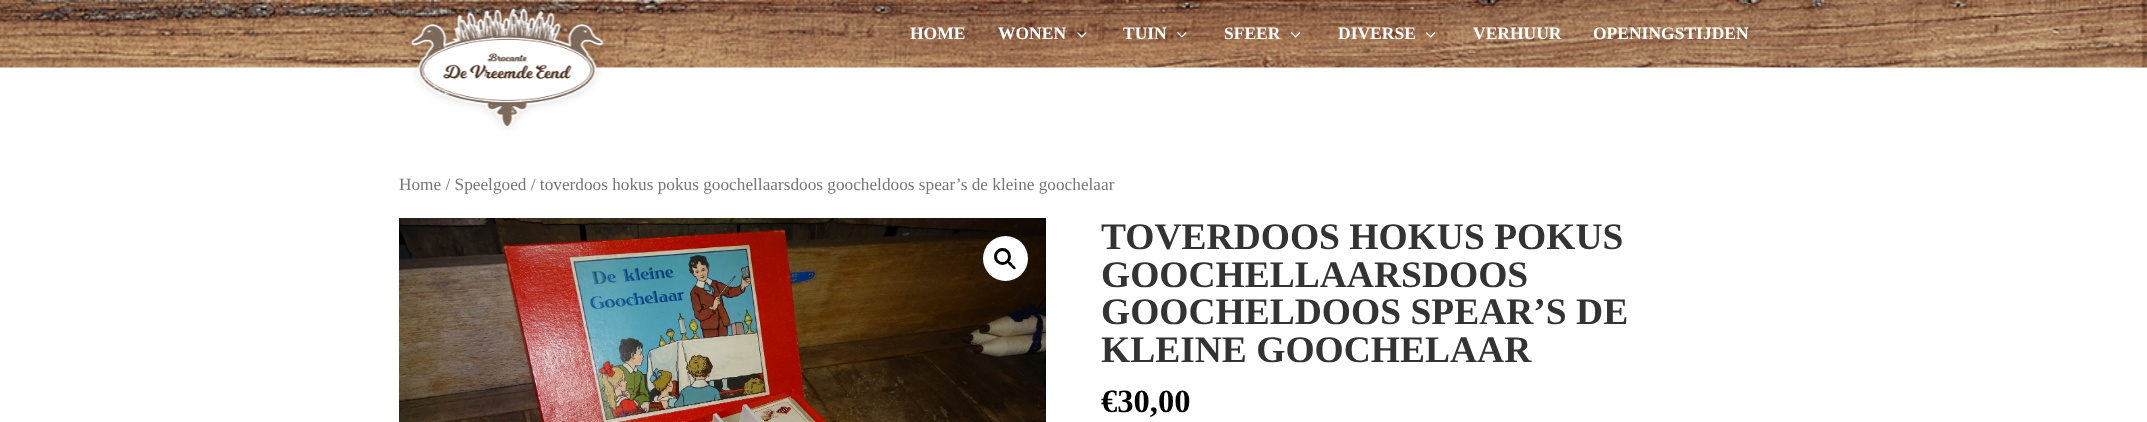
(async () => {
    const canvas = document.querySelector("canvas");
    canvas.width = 2147;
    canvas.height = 422;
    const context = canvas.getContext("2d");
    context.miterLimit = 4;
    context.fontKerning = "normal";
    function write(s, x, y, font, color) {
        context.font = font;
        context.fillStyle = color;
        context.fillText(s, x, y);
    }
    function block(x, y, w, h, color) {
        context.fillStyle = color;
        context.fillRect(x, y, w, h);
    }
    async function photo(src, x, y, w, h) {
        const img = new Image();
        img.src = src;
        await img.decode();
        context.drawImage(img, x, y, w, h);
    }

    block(0, 0, 2147, 422, "rgb(255, 255, 255)");
    await photo("media/1.png", 0, 0, 2147, 68);
    await photo("media/2.png", 409, 8, 195, 123);
    write("HOME", 910, 39, "bold 17.5px Liberation Serif", "rgb(255, 255, 255)");
    write("WONEN", 998, 39, "bold 17.5px Liberation Serif", "rgb(255, 255, 255)");
    await photo("media/3.png", 1077, 32, 10, 6);
    write("TUIN", 1123, 39, "bold 17.5px Liberation Serif", "rgb(255, 255, 255)");
    await photo("media/4.png", 1177, 32, 10, 6);
    write("SFEER", 1224, 39, "bold 17.5px Liberation Serif", "rgb(255, 255, 255)");
    await photo("media/5.png", 1291, 32, 10, 6);
    write("DIVERSE", 1338, 39, "bold 17.5px Liberation Serif", "rgb(255, 255, 255)");
    await photo("media/6.png", 1426, 32, 10, 6);
    write("VERHUUR", 1473, 39, "bold 17.5px Liberation Serif", "rgb(255, 255, 255)");
    write("OPENINGSTIJDEN", 1593, 39, "bold 17.5px Liberation Serif", "rgb(255, 255, 255)");
    write("Home / Speelgoed / toverdoos hokus pokus goochellaarsdoos goocheldoos spear’s de kleine goochelaar", 399, 190, "17.25px Liberation Serif", "rgb(118, 118, 118)");
    await photo("media/7.png", 399, 218, 647, 204);
    context.fillStyle = "rgb(255, 255, 255)";
    context.beginPath();
    context.arc(1005.5, 258.5, 22.5, 0, Math.PI * 2);
    context.fill();
    context.beginPath();
    context.arc(1002.5, 256.5, 7, 0, Math.PI * 2);
    context.strokeStyle = "rgb(0, 0, 0)";
    context.lineWidth = 3;
    context.stroke();
    context.fillStyle = "rgb(0, 0, 0)";
    context.beginPath();
    context.moveTo(1008, 262);
    context.bezierCurveTo(1009.5, 260.5, 1012, 263.5, 1012.5, 264.5);
    context.bezierCurveTo(1013.5, 265.5, 1016.5, 267.5, 1015.5, 269);
    context.bezierCurveTo(1014, 270.5, 1011.5, 267, 1011, 266.5);
    context.bezierCurveTo(1010, 265.5, 1007, 263.5, 1008, 262);
    context.closePath();
    context.fill();
    write("TOVERDOOS HOKUS POKUS", 1101, 249, "bold 37.5px Liberation Serif", "rgb(51, 51, 51)");
    write("GOOCHELLAARSDOOS", 1101, 287, "bold 37.5px Liberation Serif", "rgb(51, 51, 51)");
    write("GOOCHELDOOS SPEAR’S DE", 1101, 324, "bold 37.5px Liberation Serif", "rgb(51, 51, 51)");
    write("KLEINE GOOCHELAAR", 1101, 362, "bold 37.5px Liberation Serif", "rgb(51, 51, 51)");
    write("€30,00", 1101, 412, "bold 32.5px Liberation Serif", "rgb(0, 0, 0)");
})();
